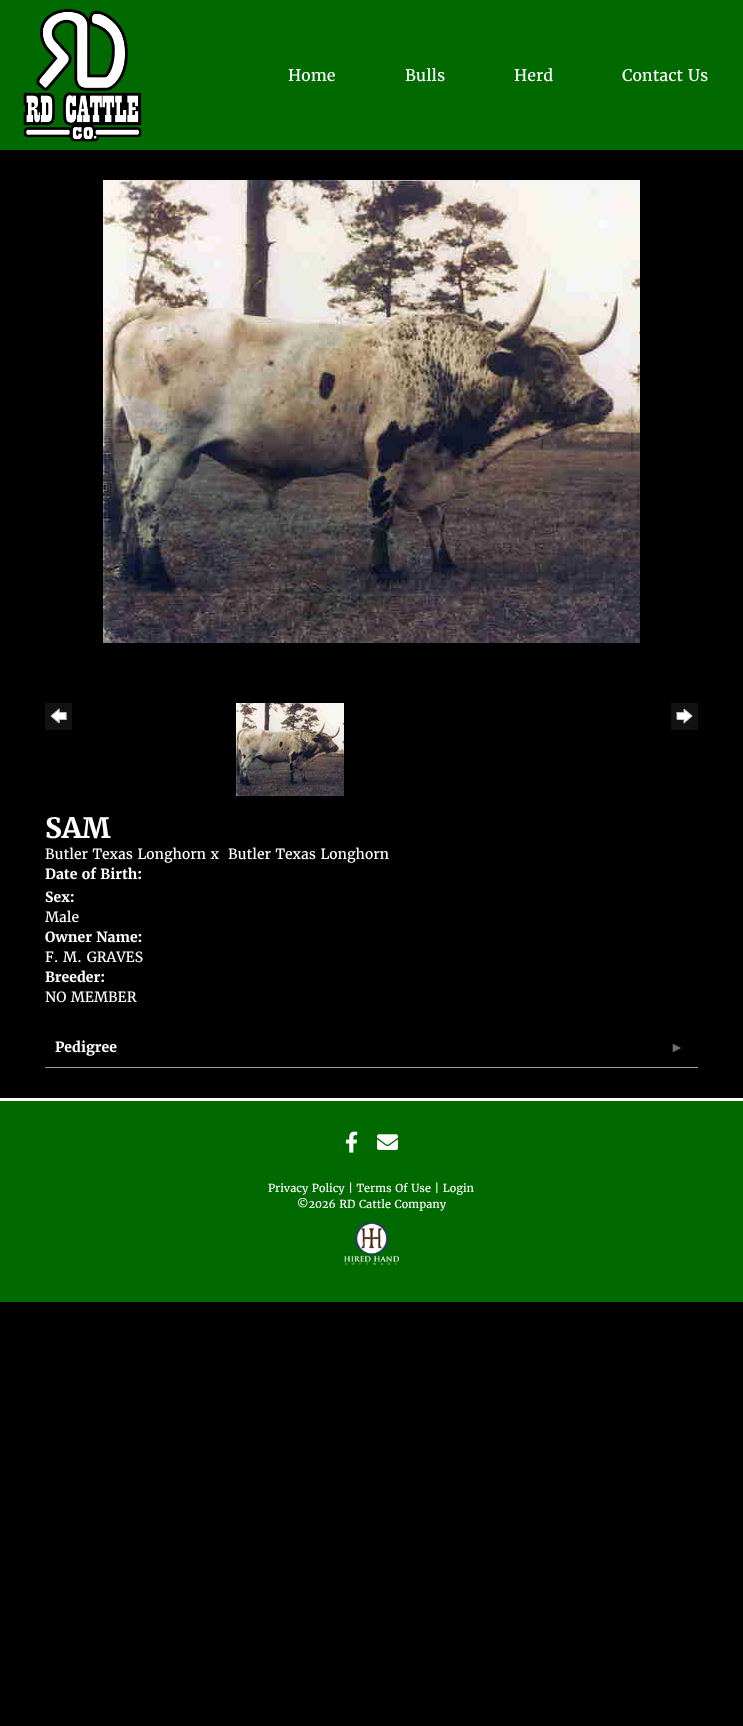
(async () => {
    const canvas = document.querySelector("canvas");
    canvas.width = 743;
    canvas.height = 1726;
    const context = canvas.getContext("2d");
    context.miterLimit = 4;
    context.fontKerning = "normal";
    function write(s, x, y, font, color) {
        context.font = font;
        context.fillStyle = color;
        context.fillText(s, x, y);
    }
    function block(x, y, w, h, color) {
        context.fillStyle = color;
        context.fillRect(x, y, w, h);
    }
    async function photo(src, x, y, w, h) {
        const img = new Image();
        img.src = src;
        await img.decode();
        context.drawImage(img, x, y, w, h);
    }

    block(0, 0, 743, 1726, "rgb(0, 0, 0)");
    block(0, 0, 743, 150, "rgb(0, 106, 0)");
    await photo("media/1.png", 23, 9, 119, 133);
    write("Home", 288, 81, "16px Merriweather", "rgb(255, 255, 255)");
    write("Bulls", 405, 81, "16px Merriweather", "rgb(255, 255, 255)");
    write("Herd", 514, 81, "16px Merriweather", "rgb(255, 255, 255)");
    write("Contact Us", 622, 81, "16px Merriweather", "rgb(255, 255, 255)");
    await photo("media/2.png", 103, 180, 537, 463);
    await photo("media/3.png", 45, 703, 27, 27);
    await photo("media/4.png", 236, 703, 108, 93);
    await photo("media/5.png", 671, 703, 27, 27);
    write("SAM", 45, 838, "bold 28px Merriweather", "rgb(255, 255, 255)");
    write("Butler Texas Longhorn x", 45, 859, "14px Merriweather", "rgb(255, 255, 255)");
    write("Butler Texas Longhorn", 228, 859, "14px Merriweather", "rgb(255, 255, 255)");
    write("Date of Birth:", 45, 879, "bold 14px Merriweather", "rgb(255, 255, 255)");
    write("Sex:", 45, 902, "bold 14px Merriweather", "rgb(255, 255, 255)");
    write("Male", 45, 922, "14px Merriweather", "rgb(255, 255, 255)");
    write("Owner Name:", 45, 942, "bold 14px Merriweather", "rgb(255, 255, 255)");
    write("F. M. GRAVES", 45, 962, "14px Merriweather", "rgb(255, 255, 255)");
    write("Breeder:", 45, 982, "bold 14px Merriweather", "rgb(255, 255, 255)");
    write("NO MEMBER", 45, 1002, "14px Merriweather", "rgb(255, 255, 255)");
    block(45, 1067, 653, 1, "rgb(155, 153, 153)");
    write("Pedigree", 55, 1052, "bold 14px Merriweather", "rgb(255, 255, 255)");
    write("►", 670, 1052, "bold 14px Liberation Serif", "rgb(114, 111, 111)");
    block(0, 1101, 743, 201, "rgb(0, 106, 0)");
    block(0, 1098, 743, 3, "rgb(255, 255, 255)");
    await photo("media/6.png", 345, 1131, 13, 22);
    await photo("media/7.png", 377, 1134, 21, 16);
    write("Privacy Policy | Terms Of Use | Login", 268, 1192, "11px Merriweather", "rgb(255, 255, 255)");
    write("©2026 RD Cattle Company", 297, 1208, "11px Merriweather", "rgb(255, 255, 255)");
    await photo("media/8.png", 344, 1222, 55, 43);
})();
